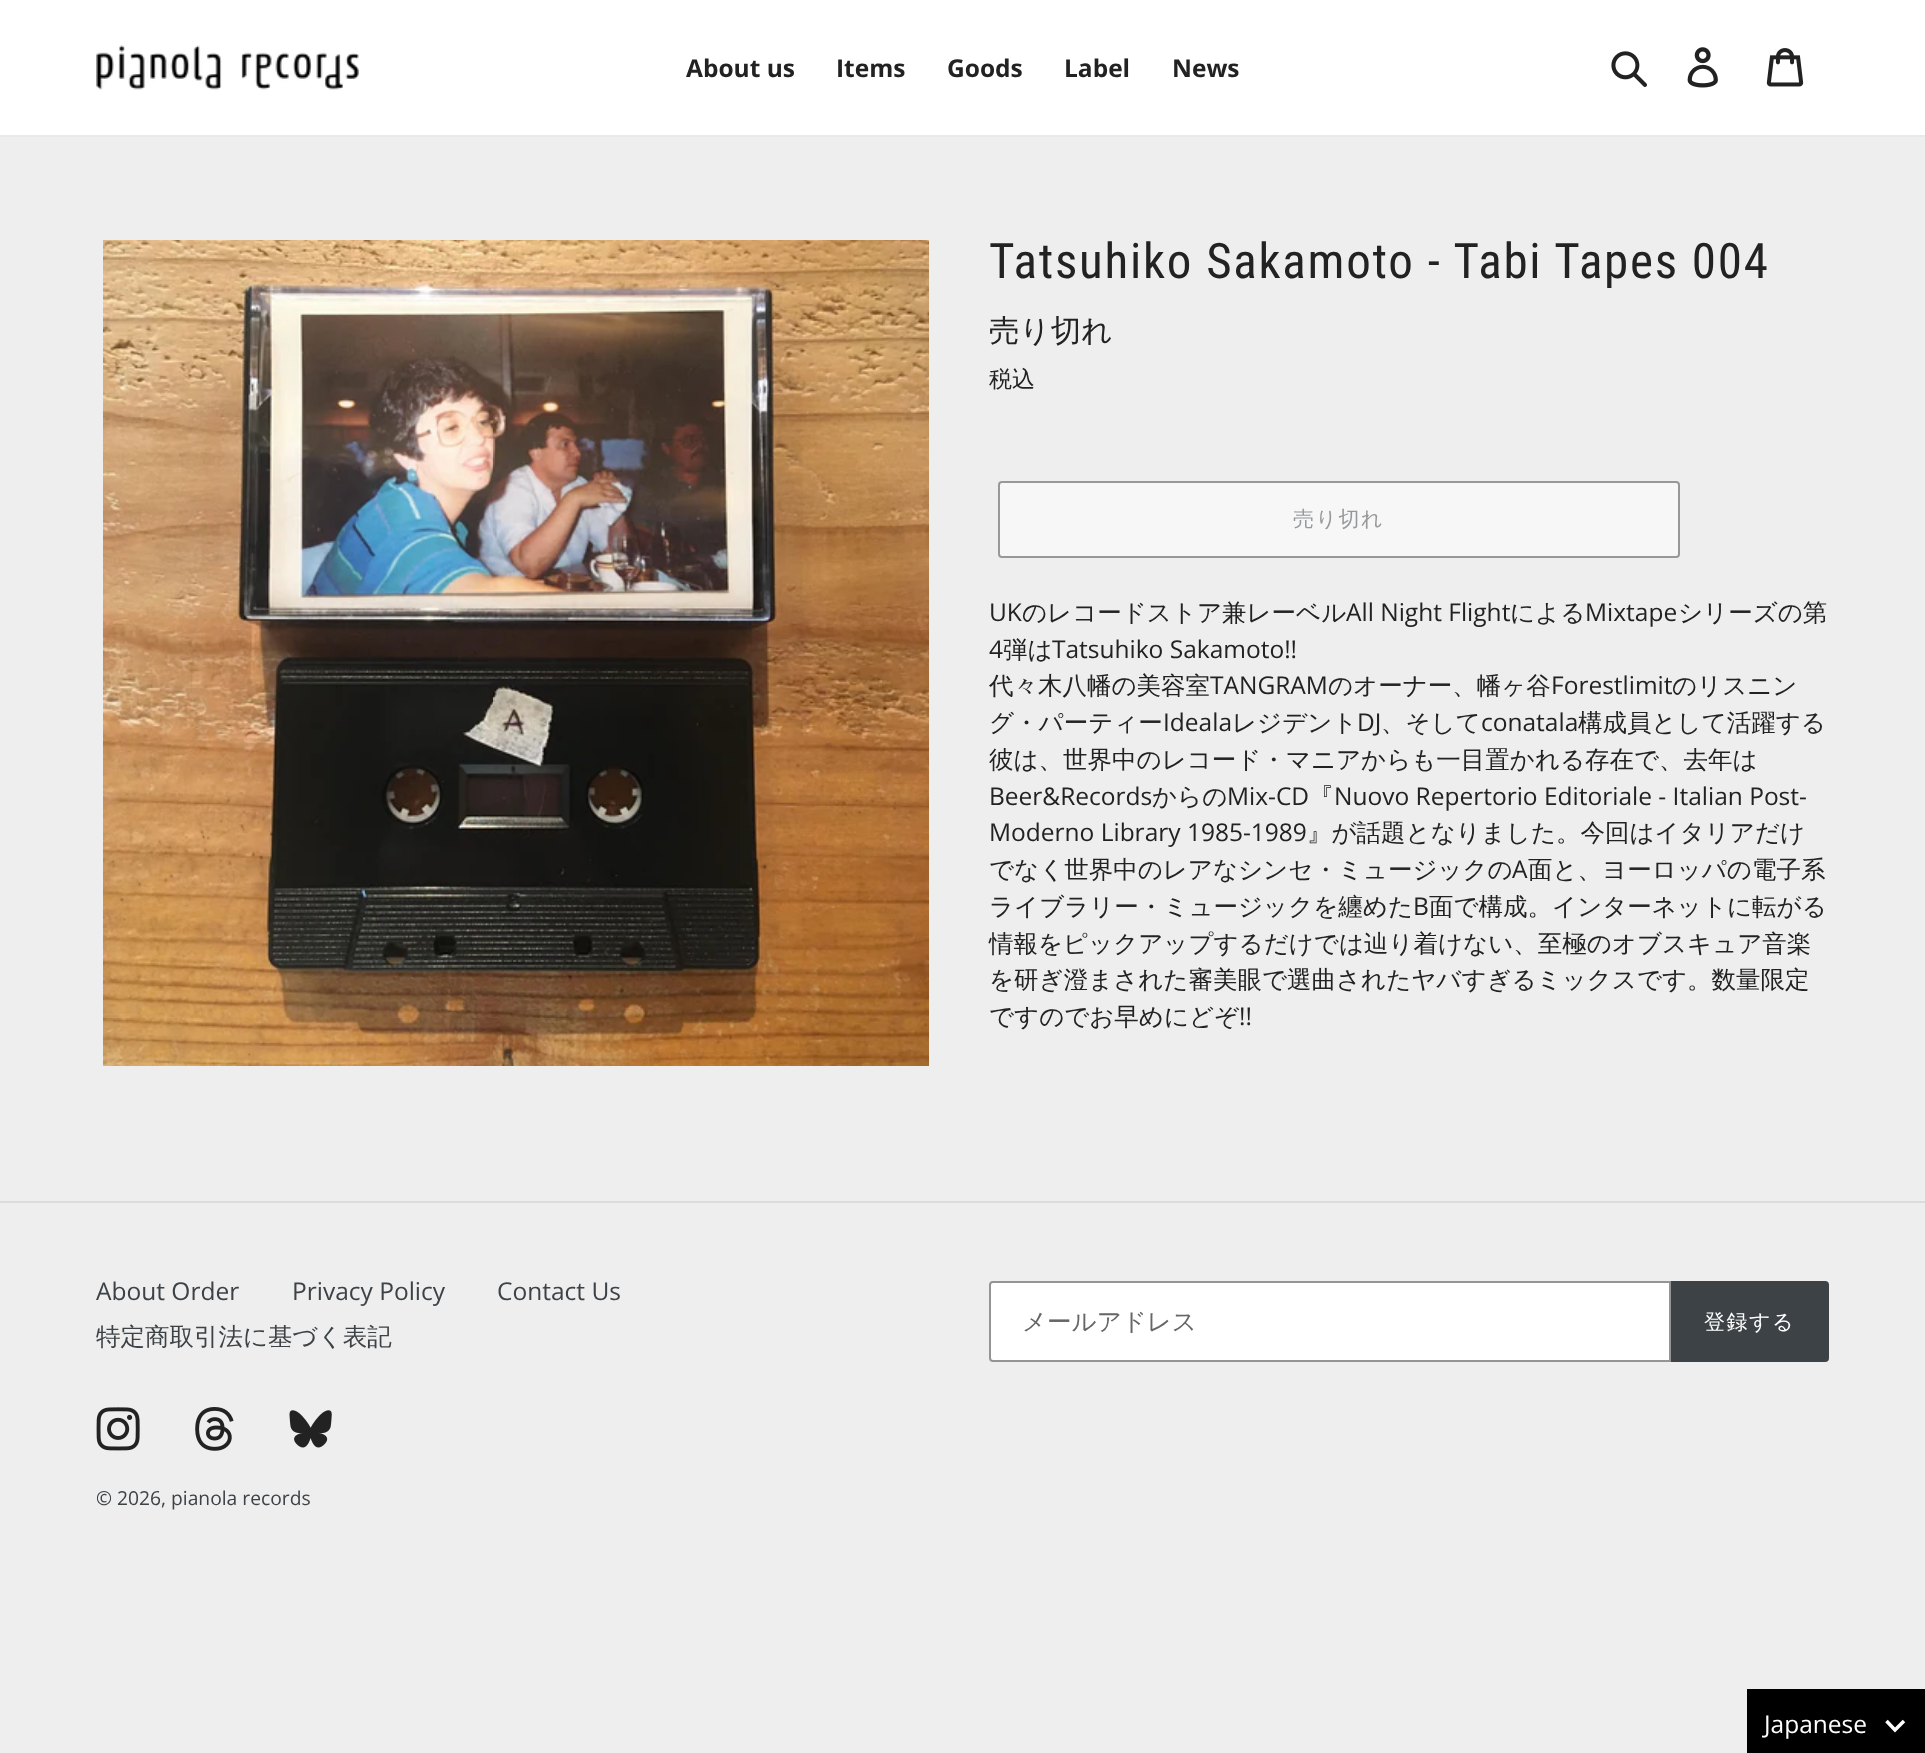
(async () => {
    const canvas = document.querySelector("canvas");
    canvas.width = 1925;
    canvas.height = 1753;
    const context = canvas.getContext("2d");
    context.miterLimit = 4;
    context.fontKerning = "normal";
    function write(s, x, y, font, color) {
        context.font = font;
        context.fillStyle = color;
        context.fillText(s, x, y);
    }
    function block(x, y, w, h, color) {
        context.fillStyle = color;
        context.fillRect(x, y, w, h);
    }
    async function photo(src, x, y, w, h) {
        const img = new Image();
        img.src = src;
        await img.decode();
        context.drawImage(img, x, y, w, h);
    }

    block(0, 0, 1925, 1753, "rgb(238, 238, 238)");
    block(0, 0, 1925, 135, "rgb(255, 255, 255)");
    block(0, 135, 1925, 2, "rgb(232, 233, 235)");
    await photo("media/1.png", 96, 45, 263, 45);
    write("About us", 686, 77, "bold 24.5px Open Sans", "rgb(34, 34, 34)");
    write("Items", 836, 77, "bold 24.5px Open Sans", "rgb(34, 34, 34)");
    write("Goods", 947, 77, "bold 24.5px Open Sans", "rgb(34, 34, 34)");
    write("Label", 1064, 77, "bold 24.5px Open Sans", "rgb(34, 34, 34)");
    write("News", 1172, 77, "bold 24.5px Open Sans", "rgb(34, 34, 34)");
    await photo("media/2.png", 1611, 51, 36, 36);
    await photo("media/3.png", 1687, 47, 31, 41);
    await photo("media/4.png", 1766, 48, 38, 39);
    await photo("media/5.png", 103, 240, 826, 826);
    context.letterSpacing = "1.75px";
    write("Tatsuhiko Sakamoto - Tabi Tapes 004", 989, 278, "49px Roboto Condensed", "rgb(34, 34, 34)");
    context.letterSpacing = "0px";
    write("売り切れ", 989, 341, "500 30.5px WenQuanYi Zen Hei", "rgb(34, 34, 34)");
    write("税込", 989, 387, "500 23px WenQuanYi Zen Hei", "rgb(34, 34, 34)");
    context.fillStyle = "rgb(247, 247, 247)";
    context.beginPath();
    context.roundRect(999, 482, 680, 75, 3);
    context.fill();
    context.strokeStyle = "rgb(150, 152, 154)";
    context.lineWidth = 2;
    context.stroke();
    context.letterSpacing = "1.5px";
    write("売り切れ", 1293, 526, "500 21px WenQuanYi Zen Hei", "rgb(150, 152, 154)");
    context.letterSpacing = "0px";
    write("UK", 989, 621, "24.5px Open Sans", "rgb(34, 34, 34)");
    write("のレコードストア兼レーベル", 1022, 621, "500 24.5px WenQuanYi Zen Hei", "rgb(34, 34, 34)");
    write("All Night Flight", 1346, 621, "24.5px Open Sans", "rgb(34, 34, 34)");
    write("による", 1510, 621, "500 24.5px WenQuanYi Zen Hei", "rgb(34, 34, 34)");
    write("Mixtape", 1585, 621, "24.5px Open Sans", "rgb(34, 34, 34)");
    write("シリーズの第", 1678, 621, "500 24.5px WenQuanYi Zen Hei", "rgb(34, 34, 34)");
    write("4", 989, 658, "24.5px Open Sans", "rgb(34, 34, 34)");
    write("弾は", 1003, 658, "500 24.5px WenQuanYi Zen Hei", "rgb(34, 34, 34)");
    write("Tatsuhiko Sakamoto!!", 1052, 658, "24.5px Open Sans", "rgb(34, 34, 34)");
    write("代々木八幡の美容室", 989, 694, "500 24.5px WenQuanYi Zen Hei", "rgb(34, 34, 34)");
    write("TANGRAM", 1210, 694, "24.5px Open Sans", "rgb(34, 34, 34)");
    write("のオーナー、幡ヶ谷", 1328, 694, "500 24.5px WenQuanYi Zen Hei", "rgb(34, 34, 34)");
    write("Forestlimit", 1551, 694, "24.5px Open Sans", "rgb(34, 34, 34)");
    write("のリスニン", 1672, 694, "500 24.5px WenQuanYi Zen Hei", "rgb(34, 34, 34)");
    write("グ・パーティー", 989, 731, "500 24.5px WenQuanYi Zen Hei", "rgb(34, 34, 34)");
    write("Ideala", 1163, 731, "24.5px Open Sans", "rgb(34, 34, 34)");
    write("レジデント", 1232, 731, "500 24.5px WenQuanYi Zen Hei", "rgb(34, 34, 34)");
    write("DJ", 1357, 731, "24.5px Open Sans", "rgb(34, 34, 34)");
    write("、そして", 1381, 731, "500 24.5px WenQuanYi Zen Hei", "rgb(34, 34, 34)");
    write("conatala", 1481, 731, "24.5px Open Sans", "rgb(34, 34, 34)");
    write("構成員として活躍する", 1578, 731, "500 24.5px WenQuanYi Zen Hei", "rgb(34, 34, 34)");
    write("彼は、世界中のレコード・マニアからも一目置かれる存在で、去年は", 989, 768, "500 24.5px WenQuanYi Zen Hei", "rgb(34, 34, 34)");
    write("Beer&Records", 989, 805, "24.5px Open Sans", "rgb(34, 34, 34)");
    write("からの", 1152, 805, "500 24.5px WenQuanYi Zen Hei", "rgb(34, 34, 34)");
    write("Mix-CD", 1227, 805, "24.5px Open Sans", "rgb(34, 34, 34)");
    write("『", 1309, 805, "500 24.5px WenQuanYi Zen Hei", "rgb(34, 34, 34)");
    write("Nuovo Repertorio Editoriale - Italian Post-", 1334, 805, "24.5px Open Sans", "rgb(34, 34, 34)");
    write("Moderno Library 1985-1989", 989, 841, "24.5px Open Sans", "rgb(34, 34, 34)");
    write("』が話題となりました。今回はイタリアだけ", 1307, 841, "500 24.5px WenQuanYi Zen Hei", "rgb(34, 34, 34)");
    write("でなく世界中のレアなシンセ・ミュージックの", 989, 878, "500 24.5px WenQuanYi Zen Hei", "rgb(34, 34, 34)");
    write("A", 1512, 878, "24.5px Open Sans", "rgb(34, 34, 34)");
    write("面と、ヨーロッパの電子系", 1528, 878, "500 24.5px WenQuanYi Zen Hei", "rgb(34, 34, 34)");
    write("ライブラリー・ミュージックを纏めた", 989, 915, "500 24.5px WenQuanYi Zen Hei", "rgb(34, 34, 34)");
    write("B", 1413, 915, "24.5px Open Sans", "rgb(34, 34, 34)");
    write("面で構成。インターネットに転がる", 1429, 915, "500 24.5px WenQuanYi Zen Hei", "rgb(34, 34, 34)");
    write("情報をピックアップするだけでは辿り着けない、至極のオブスキュア音楽", 989, 952, "500 24.5px WenQuanYi Zen Hei", "rgb(34, 34, 34)");
    write("を研ぎ澄まされた審美眼で選曲されたヤバすぎるミックスです。数量限定", 989, 988, "500 24.5px WenQuanYi Zen Hei", "rgb(34, 34, 34)");
    write("ですのでお早めにどぞ", 989, 1025, "500 24.5px WenQuanYi Zen Hei", "rgb(34, 34, 34)");
    write("!!", 1239, 1025, "24.5px Open Sans", "rgb(34, 34, 34)");
    block(0, 1201, 1925, 2, "rgb(220, 220, 220)");
    write("About Order", 96, 1300, "24.5px Open Sans", "rgb(61, 66, 70)");
    write("Privacy Policy", 292, 1300, "24.5px Open Sans", "rgb(61, 66, 70)");
    write("Contact Us", 497, 1300, "24.5px Open Sans", "rgb(61, 66, 70)");
    write("特定商取引法に基づく表記", 96, 1345, "500 24.5px WenQuanYi Zen Hei", "rgb(61, 66, 70)");
    context.fillStyle = "rgb(255, 255, 255)";
    context.beginPath();
    context.roundRect(990, 1282, 680, 79, [3, 0, 0, 3]);
    context.fill();
    context.strokeStyle = "rgb(148, 148, 148)";
    context.stroke();
    write("メールアドレス", 1022, 1330, "500 24.5px WenQuanYi Zen Hei", "rgb(102, 102, 102)");
    context.fillStyle = "rgb(61, 66, 70)";
    context.beginPath();
    context.roundRect(1671, 1281, 158, 81, [0, 4, 4, 0]);
    context.fill();
    context.letterSpacing = "1.5px";
    write("登録する", 1704, 1329, "500 21px WenQuanYi Zen Hei", "rgb(255, 255, 255)");
    await photo("media/6.png", 96, 1407, 44, 44);
    await photo("media/7.png", 195, 1407, 39, 44);
    await photo("media/8.png", 289, 1410, 43, 38);
    context.letterSpacing = "0px";
    write("© 2026, pianola records", 96, 1505, "19.25px Open Sans", "rgb(61, 66, 70)");
    block(1747, 1689, 178, 64, "rgb(0, 0, 0)");
    write("Japanese", 1764, 1733, "24.5px Open Sans", "rgb(255, 255, 255)");
    context.beginPath();
    context.moveTo(1886.5, 1721);
    context.lineTo(1895, 1730);
    context.lineTo(1904, 1721);
    context.strokeStyle = "rgb(255, 255, 255)";
    context.lineWidth = 3.5;
    context.stroke();
})();
